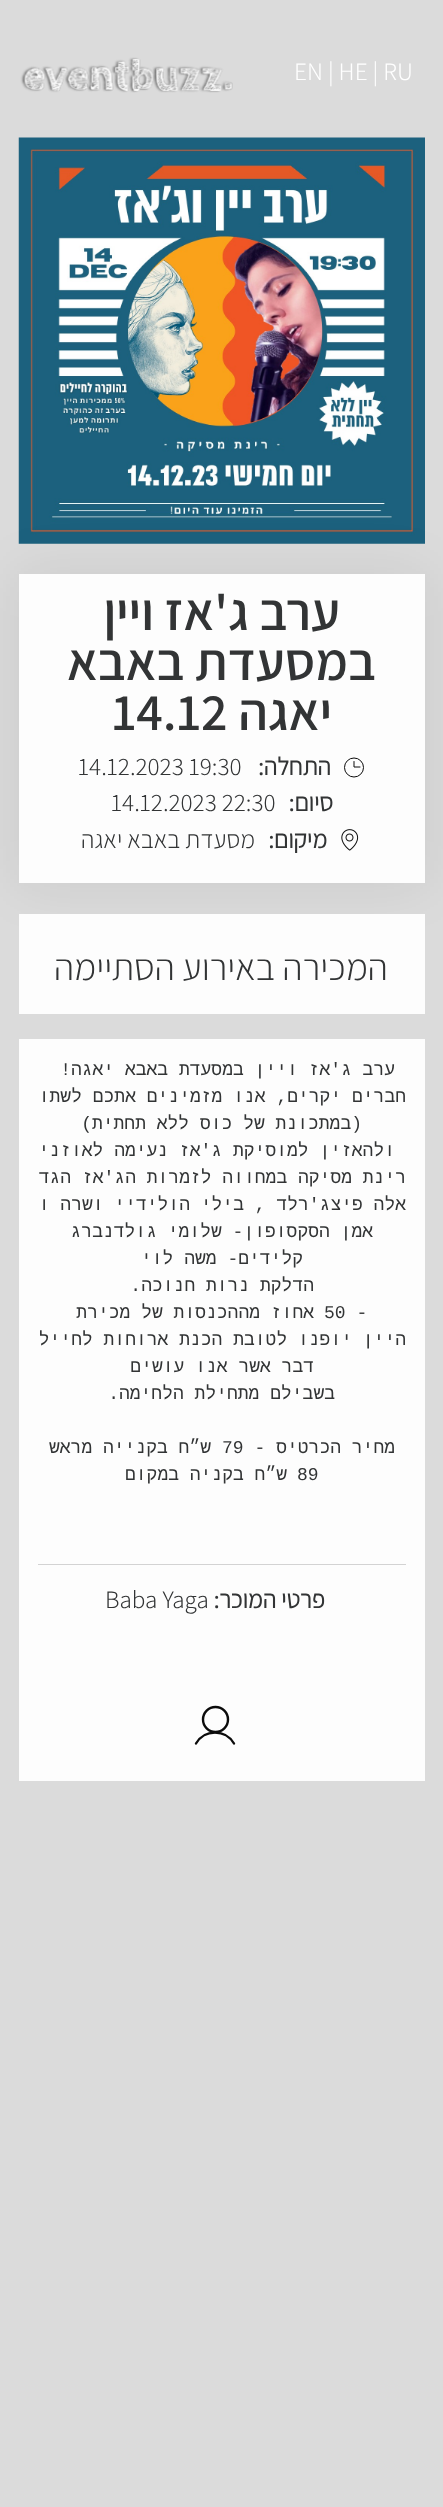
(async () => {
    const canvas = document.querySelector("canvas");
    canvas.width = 443;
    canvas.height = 2507;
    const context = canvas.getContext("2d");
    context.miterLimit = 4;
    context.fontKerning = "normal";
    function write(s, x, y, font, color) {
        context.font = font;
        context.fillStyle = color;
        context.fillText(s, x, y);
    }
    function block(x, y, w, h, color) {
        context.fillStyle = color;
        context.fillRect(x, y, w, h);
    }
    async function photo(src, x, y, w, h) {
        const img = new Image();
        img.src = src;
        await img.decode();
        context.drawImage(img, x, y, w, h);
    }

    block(0, 0, 443, 2507, "rgb(219, 219, 219)");
    write("EN | HE | RU", 294, 80, "300 25px Assistant", "rgb(255, 255, 255)");
    await photo("media/1.png", 20, 57, 213, 36);
    await photo("media/2.png", 18, 137, 407, 407);
    context.fillStyle = "rgba(0, 0, 0, 0.08)";
    context.filter = "blur(27.5px)";
    context.beginPath();
    context.rect(19, 574, 406, 309);
    context.fill();
    context.filter = "none";
    block(19, 574, 406, 309, "rgb(253, 253, 253)");
    context.direction = "rtl";
    write("ערב ג'אז ויין", 340, 630, "600 52.5px Assistant", "rgb(50, 52, 53)");
    write("במסעדת באבא", 376, 680, "600 52.5px Assistant", "rgb(50, 52, 53)");
    write("יאגה", 332, 730, "600 52.5px Assistant", "rgb(50, 52, 53)");
    context.direction = "ltr";
    write("14.12", 112, 730, "600 52.5px Assistant", "rgb(50, 52, 53)");
    context.beginPath();
    context.arc(354, 767.5, 9.5, 0, Math.PI * 2);
    context.strokeStyle = "rgb(11, 11, 11)";
    context.stroke();
    context.direction = "rtl";
    write("התחלה:", 331, 775, "bold 25px Assistant", "rgb(50, 52, 53)");
    context.direction = "ltr";
    write("14.12.2023 19:30", 78, 775, "300 25px Assistant", "rgb(50, 52, 53)");
    context.beginPath();
    context.moveTo(354, 761.5);
    context.lineTo(354, 767);
    context.lineTo(360, 767);
    context.lineCap = "round";
    context.lineJoin = "round";
    context.stroke();
    context.direction = "rtl";
    write("סיום:", 333, 811, "bold 25px Assistant", "rgb(50, 52, 53)");
    context.direction = "ltr";
    write("14.12.2023 22:30", 111, 811, "300 25px Assistant", "rgb(50, 52, 53)");
    await photo("media/3.png", 341, 829, 18, 22);
    context.direction = "rtl";
    write("מיקום:", 327, 848, "bold 25px Assistant", "rgb(50, 52, 53)");
    write("מסעדת באבא יאגה", 255, 848, "300 25px Assistant", "rgb(50, 52, 53)");
    block(19, 914, 406, 100, "rgb(253, 253, 253)");
    write("המכירה באירוע הסתיימה", 388, 980, "300 37.5px Assistant", "rgb(50, 52, 53)");
    block(19, 1039, 406, 742, "rgba(255, 255, 255, 0.95)");
    block(38, 1564, 368, 1, "rgb(211, 211, 211)");
    write("ערב ג'אז ויין במסעדת באבא יאגה!", 395, 1075, "18px Liberation Mono", "rgb(50, 52, 53)");
    context.save();
    context.beginPath();
    context.rect(38, 1058, 368, 486);
    context.clip();
    write("חברים יקרים, אנו מזמינים אתכם לשתות יין", 406, 1102, "18px Liberation Mono", "rgb(50, 52, 53)");
    context.restore();
    write("(במתכונת של כוס ללא תחתית)", 362, 1129, "18px Liberation Mono", "rgb(50, 52, 53)");
    context.save();
    context.beginPath();
    context.rect(38, 1058, 368, 486);
    context.clip();
    write("ולהאזין למוסיקת ג'אז נעימה לאוזניכם.", 395, 1156, "18px Liberation Mono", "rgb(50, 52, 53)");
    write("רינת מסיקה במחווה לזמרות הג'אז הגדולות:", 406, 1183, "18px Liberation Mono", "rgb(50, 52, 53)");
    write("אלה פיצג'רלד , בילי הולידיי ושרה וון.", 406, 1210, "18px Liberation Mono", "rgb(50, 52, 53)");
    context.restore();
    write("אמן הסקסופון- שלומי גולדנברג", 373, 1237, "18px Liberation Mono", "rgb(50, 52, 53)");
    write("קלידים- משה לוי", 303, 1264, "18px Liberation Mono", "rgb(50, 52, 53)");
    write("הדלקת נרות חנוכה.", 314, 1291, "18px Liberation Mono", "rgb(50, 52, 53)");
    context.direction = "ltr";
    write("50 -", 324, 1318, "18px Liberation Mono", "rgb(50, 52, 53)");
    context.direction = "rtl";
    write("אחוז מההכנסות של מכירת", 314, 1318, "18px Liberation Mono", "rgb(50, 52, 53)");
    context.save();
    context.beginPath();
    context.rect(38, 1058, 368, 486);
    context.clip();
    write("היין יופנו לטובת הכנת ארוחות לחיילנו,", 406, 1345, "18px Liberation Mono", "rgb(50, 52, 53)");
    context.restore();
    write("דבר אשר אנו עושים", 314, 1372, "18px Liberation Mono", "rgb(50, 52, 53)");
    write("בשבילם מתחילת הלחימה.", 335, 1399, "18px Liberation Mono", "rgb(50, 52, 53)");
    write("מחיר הכרטיס -", 395, 1453, "18px Liberation Mono", "rgb(50, 52, 53)");
    context.direction = "ltr";
    write("79", 222, 1453, "18px Liberation Mono", "rgb(50, 52, 53)");
    context.direction = "rtl";
    write("ש״ח בקנייה מראש", 211, 1453, "18px Liberation Mono", "rgb(50, 52, 53)");
    context.direction = "ltr";
    write("89", 297, 1480, "18px Liberation Mono", "rgb(50, 52, 53)");
    context.direction = "rtl";
    write("ש״ח בקניה במקום", 287, 1480, "18px Liberation Mono", "rgb(50, 52, 53)");
    write("פרטי המוכר:", 325, 1608, "bold 25px Assistant", "rgb(50, 52, 53)");
    context.direction = "ltr";
    write("Baba Yaga", 105, 1608, "300 25px Assistant", "rgb(50, 52, 53)");
    context.beginPath();
    context.arc(215.5, 1719.5, 12.5, 0, Math.PI * 2);
    context.lineWidth = 2.4;
    context.stroke();
    context.beginPath();
    context.moveTo(196, 1743.5);
    context.bezierCurveTo(204.5, 1729, 225.5, 1729, 234, 1743.5);
    context.stroke();
})();
